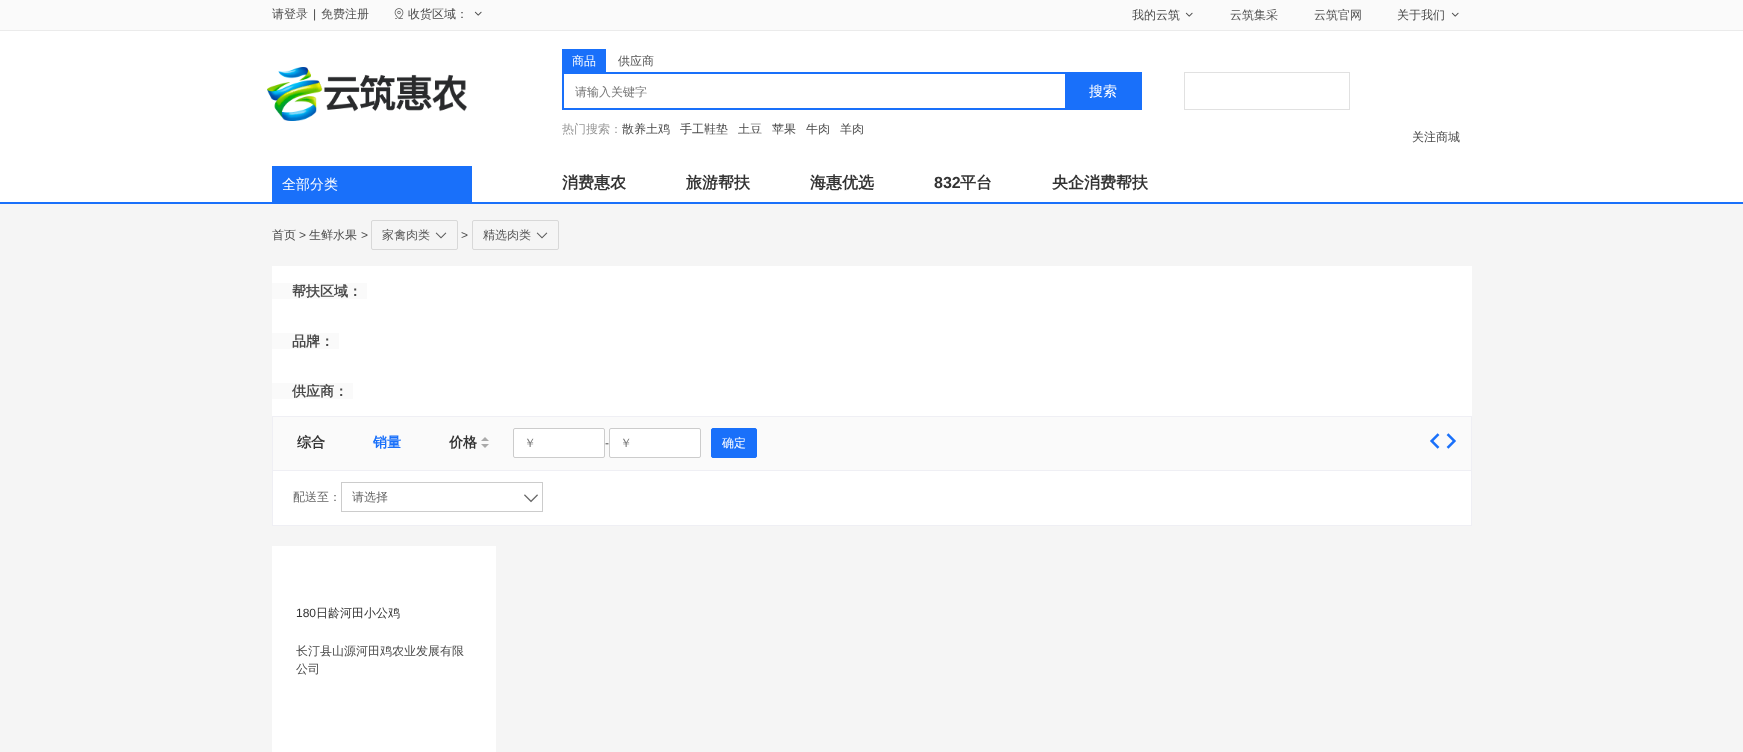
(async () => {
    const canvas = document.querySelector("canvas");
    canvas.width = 1743;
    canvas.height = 752;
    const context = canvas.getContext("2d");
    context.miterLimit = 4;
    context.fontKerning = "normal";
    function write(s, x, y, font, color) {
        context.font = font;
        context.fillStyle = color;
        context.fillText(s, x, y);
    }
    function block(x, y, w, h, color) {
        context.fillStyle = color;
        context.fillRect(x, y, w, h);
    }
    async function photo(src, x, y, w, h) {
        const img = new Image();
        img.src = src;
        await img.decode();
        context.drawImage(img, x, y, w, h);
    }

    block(0, 0, 1743, 752, "rgb(245, 245, 245)");
    block(0, 0, 1743, 30, "rgb(250, 250, 250)");
    block(0, 30, 1743, 1, "rgb(235, 235, 235)");
    write("请", 272, 18, "500 12px WenQuanYi Zen Hei", "rgb(74, 74, 74)");
    write("登录", 284, 18, "500 12px WenQuanYi Zen Hei", "rgb(85, 85, 85)");
    write("|", 313, 18, "12px Liberation Sans", "rgb(74, 74, 74)");
    write("免费注册", 321, 18, "500 12px WenQuanYi Zen Hei", "rgb(85, 85, 85)");
    await photo("media/1.png", 394, 8, 10, 11);
    write("收货区域：", 408, 18, "500 12px WenQuanYi Zen Hei", "rgb(74, 74, 74)");
    await photo("media/2.png", 474, 11, 8, 5);
    write("我的云筑", 1132, 19, "500 12px WenQuanYi Zen Hei", "rgb(74, 74, 74)");
    await photo("media/2.png", 1185, 12, 8, 5);
    write("云筑集采", 1230, 19, "500 12px WenQuanYi Zen Hei", "rgb(85, 85, 85)");
    write("云筑官网", 1314, 19, "500 12px WenQuanYi Zen Hei", "rgb(85, 85, 85)");
    write("关于我们", 1397, 19, "500 12px WenQuanYi Zen Hei", "rgb(74, 74, 74)");
    await photo("media/2.png", 1451, 12, 8, 5);
    block(0, 31, 1743, 171, "rgb(255, 255, 255)");
    block(0, 202, 1743, 2, "rgb(25, 112, 250)");
    await photo("media/3.png", 267, 67, 200, 54);
    block(562, 49, 44, 23, "rgb(25, 112, 250)");
    write("商品", 572, 65, "500 12px WenQuanYi Zen Hei", "rgb(255, 255, 255)");
    write("供应商", 618, 65, "500 12px WenQuanYi Zen Hei", "rgb(85, 85, 85)");
    context.strokeStyle = "rgb(25, 112, 250)";
    context.lineWidth = 2;
    context.strokeRect(563, 73, 578, 36);
    write("请输入关键字", 575, 96, "500 12px WenQuanYi Zen Hei", "rgb(117, 117, 117)");
    block(1065, 74, 75, 34, "rgb(25, 112, 250)");
    write("搜索", 1089, 96, "500 14px WenQuanYi Zen Hei", "rgb(255, 255, 255)");
    write("热门搜索：", 562, 133, "500 12px WenQuanYi Zen Hei", "rgb(153, 153, 153)");
    write("散养土鸡", 622, 133, "500 12px WenQuanYi Zen Hei", "rgb(74, 74, 74)");
    write("手工鞋垫", 680, 133, "500 12px WenQuanYi Zen Hei", "rgb(74, 74, 74)");
    write("土豆", 738, 133, "500 12px WenQuanYi Zen Hei", "rgb(74, 74, 74)");
    write("苹果", 772, 133, "500 12px WenQuanYi Zen Hei", "rgb(74, 74, 74)");
    write("牛肉", 806, 133, "500 12px WenQuanYi Zen Hei", "rgb(74, 74, 74)");
    write("羊肉", 840, 133, "500 12px WenQuanYi Zen Hei", "rgb(74, 74, 74)");
    context.strokeStyle = "rgb(225, 225, 225)";
    context.lineWidth = 1;
    context.strokeRect(1184.5, 72.5, 165, 37);
    write("关注商城", 1412, 141, "500 12px WenQuanYi Zen Hei", "rgb(74, 74, 74)");
    block(272, 166, 200, 36, "rgb(25, 112, 250)");
    write("全部分类", 282, 189, "500 14px WenQuanYi Zen Hei", "rgb(255, 255, 255)");
    write("消费惠农", 562, 188, "bold 16px WenQuanYi Zen Hei", "rgb(51, 51, 51)");
    write("旅游帮扶", 686, 188, "bold 16px WenQuanYi Zen Hei", "rgb(51, 51, 51)");
    write("海惠优选", 810, 188, "bold 16px WenQuanYi Zen Hei", "rgb(51, 51, 51)");
    write("832", 934, 188, "bold 16px Liberation Sans", "rgb(51, 51, 51)");
    write("平台", 960, 188, "bold 16px WenQuanYi Zen Hei", "rgb(51, 51, 51)");
    write("央企消费帮扶", 1052, 188, "bold 16px WenQuanYi Zen Hei", "rgb(51, 51, 51)");
    write("首页", 272, 239, "500 12px WenQuanYi Zen Hei", "rgb(74, 74, 74)");
    write(">", 299, 239, "12px Liberation Sans", "rgb(74, 74, 74)");
    write("生鲜水果", 309, 239, "500 12px WenQuanYi Zen Hei", "rgb(74, 74, 74)");
    write(">", 361, 239, "12px Liberation Sans", "rgb(74, 74, 74)");
    context.beginPath();
    context.roundRect(371.5, 220.5, 86, 29, 1.5);
    context.strokeStyle = "rgb(216, 216, 216)";
    context.stroke();
    write("家禽肉类", 382, 239, "500 12px WenQuanYi Zen Hei", "rgb(85, 85, 85)");
    await photo("media/4.png", 435, 232, 12, 7);
    write(">", 461, 239, "12px Liberation Sans", "rgb(74, 74, 74)");
    context.beginPath();
    context.roundRect(472.5, 220.5, 86, 29, 1.5);
    context.stroke();
    write("精选肉类", 483, 239, "500 12px WenQuanYi Zen Hei", "rgb(85, 85, 85)");
    await photo("media/4.png", 536, 232, 12, 7);
    block(272, 266, 1200, 150, "rgb(255, 255, 255)");
    block(272, 283, 95, 16, "rgb(250, 250, 250)");
    write("帮扶区域：", 292, 296, "bold 14px WenQuanYi Zen Hei", "rgb(74, 74, 74)");
    block(272, 333, 67, 16, "rgb(250, 250, 250)");
    write("品牌：", 292, 346, "bold 14px WenQuanYi Zen Hei", "rgb(74, 74, 74)");
    block(272, 383, 81, 16, "rgb(250, 250, 250)");
    write("供应商：", 292, 396, "bold 14px WenQuanYi Zen Hei", "rgb(74, 74, 74)");
    block(273, 471, 1198, 54, "rgb(255, 255, 255)");
    context.strokeStyle = "rgb(239, 239, 244)";
    context.strokeRect(272.5, 416.5, 1199, 109);
    block(273, 417, 1198, 53, "rgb(250, 250, 250)");
    block(273, 470, 1198, 1, "rgb(239, 239, 244)");
    write("综合", 297, 447, "bold 14px WenQuanYi Zen Hei", "rgb(51, 51, 51)");
    write("销量", 373, 447, "bold 14px WenQuanYi Zen Hei", "rgb(25, 112, 250)");
    write("价格", 449, 447, "bold 14px WenQuanYi Zen Hei", "rgb(51, 51, 51)");
    context.fillStyle = "rgb(170, 170, 170)";
    context.beginPath();
    context.moveTo(489, 441);
    context.lineTo(481, 441);
    context.lineTo(485, 437);
    context.closePath();
    context.moveTo(481, 444);
    context.lineTo(489, 444);
    context.lineTo(485, 448);
    context.closePath();
    context.fill();
    context.fillStyle = "rgb(255, 255, 255)";
    context.beginPath();
    context.roundRect(513.5, 428.5, 91, 29, 1.5);
    context.fill();
    context.strokeStyle = "rgb(204, 204, 204)";
    context.stroke();
    write("￥", 524, 447, "500 12px WenQuanYi Zen Hei", "rgb(117, 117, 117)");
    write("-", 605, 447, "12px Liberation Sans", "rgb(74, 74, 74)");
    context.fillStyle = "rgb(255, 255, 255)";
    context.beginPath();
    context.roundRect(609.5, 428.5, 91, 29, 1.5);
    context.fill();
    context.stroke();
    write("￥", 620, 447, "500 12px WenQuanYi Zen Hei", "rgb(117, 117, 117)");
    context.fillStyle = "rgb(25, 112, 250)";
    context.beginPath();
    context.roundRect(711.5, 428.5, 45, 29, 1.5);
    context.fill();
    context.strokeStyle = "rgb(25, 112, 250)";
    context.stroke();
    write("确定", 722, 447, "500 12px WenQuanYi Zen Hei", "rgb(255, 255, 255)");
    await photo("media/5.png", 1430, 433, 10, 16);
    await photo("media/6.png", 1446, 433, 10, 16);
    write("配送至：", 293, 501, "500 12px WenQuanYi Zen Hei", "rgb(102, 102, 102)");
    context.strokeStyle = "rgb(204, 204, 204)";
    context.strokeRect(341.5, 482.5, 201, 29);
    write("请选择", 352, 501, "500 12px WenQuanYi Zen Hei", "rgb(102, 102, 102)");
    await photo("media/7.png", 524, 494, 14, 9);
    block(272, 546, 224, 206, "rgb(255, 255, 255)");
    write("180", 296, 617, "12px Liberation Sans", "rgb(51, 51, 51)");
    write("日龄河田小公鸡", 316, 617, "500 12px WenQuanYi Zen Hei", "rgb(51, 51, 51)");
    write("长汀县山源河田鸡农业发展有限", 296, 655, "500 12px WenQuanYi Zen Hei", "rgb(74, 74, 74)");
    write("公司", 296, 673, "500 12px WenQuanYi Zen Hei", "rgb(74, 74, 74)");
})();
